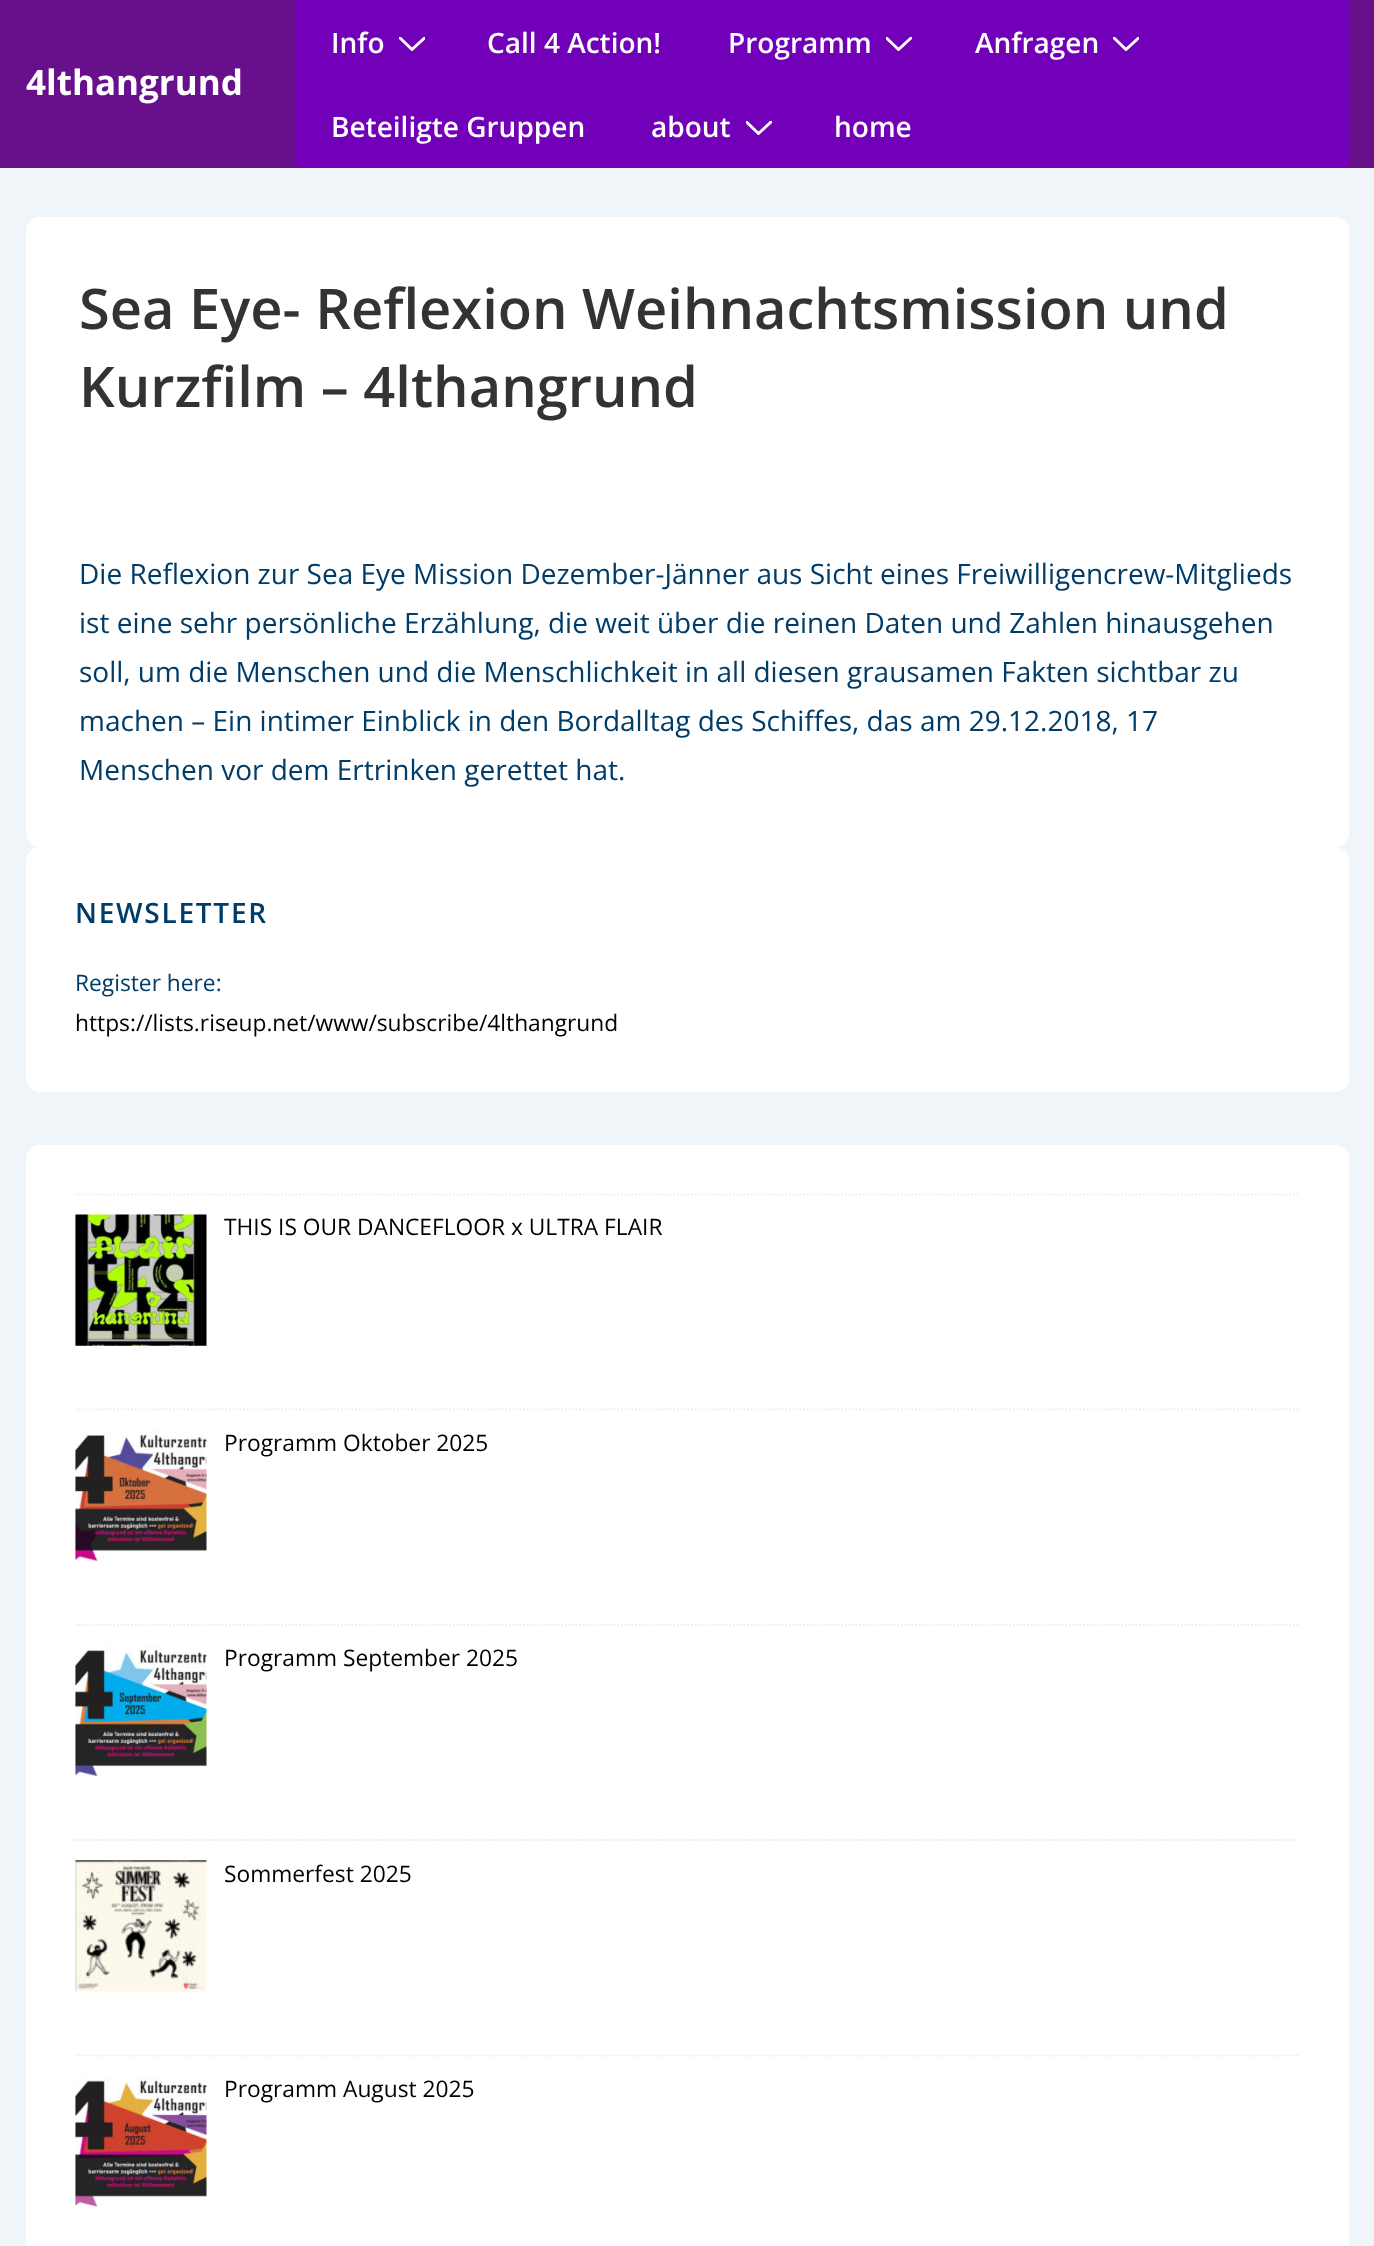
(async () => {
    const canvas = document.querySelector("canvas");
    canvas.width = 1374;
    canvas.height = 2246;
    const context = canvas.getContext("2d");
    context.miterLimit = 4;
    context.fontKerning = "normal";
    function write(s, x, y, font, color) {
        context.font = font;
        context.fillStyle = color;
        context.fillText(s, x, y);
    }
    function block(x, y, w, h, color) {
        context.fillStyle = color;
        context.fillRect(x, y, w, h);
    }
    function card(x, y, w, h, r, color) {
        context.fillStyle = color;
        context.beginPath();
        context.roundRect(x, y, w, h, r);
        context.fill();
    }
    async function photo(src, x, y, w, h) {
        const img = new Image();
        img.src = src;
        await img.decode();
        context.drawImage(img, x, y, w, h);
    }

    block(0, 0, 1374, 2246, "rgb(240, 245, 250)");
    block(0, 0, 1374, 168, "rgb(104, 15, 140)");
    write("4lthangrund", 26, 95, "bold 35px Open Sans", "rgb(255, 255, 255)");
    block(296, 0, 1053, 168, "rgb(113, 0, 184)");
    write("Info", 331, 53, "600 28px Open Sans", "rgb(255, 255, 255)");
    context.save();
    context.beginPath();
    context.rect(399, 37, 26, 14);
    context.clip();
    context.beginPath();
    context.moveTo(400, 38);
    context.lineTo(412, 49.5);
    context.lineTo(424.5, 38);
    context.strokeStyle = "rgb(255, 255, 255)";
    context.lineWidth = 2.9;
    context.lineCap = "round";
    context.stroke();
    context.restore();
    write("Call 4 Action!", 487, 53, "600 28px Open Sans", "rgb(255, 255, 255)");
    write("Programm", 728, 53, "600 28px Open Sans", "rgb(255, 255, 255)");
    context.save();
    context.beginPath();
    context.rect(886, 37, 26, 14);
    context.clip();
    context.beginPath();
    context.moveTo(886.5, 38);
    context.lineTo(898.5, 49.5);
    context.lineTo(911, 38);
    context.strokeStyle = "rgb(255, 255, 255)";
    context.lineWidth = 2.9;
    context.lineCap = "round";
    context.stroke();
    context.restore();
    write("Anfragen", 975, 53, "600 28px Open Sans", "rgb(255, 255, 255)");
    context.save();
    context.beginPath();
    context.rect(1113, 37, 26, 14);
    context.clip();
    context.beginPath();
    context.moveTo(1114, 38);
    context.lineTo(1126, 49.5);
    context.lineTo(1138.5, 38);
    context.strokeStyle = "rgb(255, 255, 255)";
    context.lineWidth = 2.9;
    context.lineCap = "round";
    context.stroke();
    context.restore();
    write("Beteiligte Gruppen", 331, 137, "600 28px Open Sans", "rgb(255, 255, 255)");
    write("about", 651, 137, "600 28px Open Sans", "rgb(255, 255, 255)");
    context.save();
    context.beginPath();
    context.rect(746, 121, 26, 14);
    context.clip();
    context.beginPath();
    context.moveTo(746.5, 122);
    context.lineTo(758.5, 133.5);
    context.lineTo(771, 122);
    context.strokeStyle = "rgb(255, 255, 255)";
    context.lineWidth = 2.9;
    context.lineCap = "round";
    context.stroke();
    context.restore();
    write("home", 834, 137, "600 28px Open Sans", "rgb(255, 255, 255)");
    card(26, 217, 1323, 630, 14, "rgb(255, 255, 255)");
    write("Sea Eye- Reflexion Weihnachtsmission und", 79, 329, "600 56px Open Sans", "rgb(51, 51, 51)");
    write("Kurzfilm – 4lthangrund", 79, 407, "600 56px Open Sans", "rgb(51, 51, 51)");
    write("Die Reflexion zur Sea Eye Mission Dezember-Jänner aus Sicht eines Freiwilligencrew-Mitglieds", 79, 584, "28px Open Sans", "rgb(0, 60, 104)");
    write("ist eine sehr persönliche Erzählung, die weit über die reinen Daten und Zahlen hinausgehen", 79, 633, "28px Open Sans", "rgb(0, 60, 104)");
    write("soll, um die Menschen und die Menschlichkeit in all diesen grausamen Fakten sichtbar zu", 79, 682, "28px Open Sans", "rgb(0, 60, 104)");
    write("machen – Ein intimer Einblick in den Bordalltag des Schiffes, das am 29.12.2018, 17", 79, 731, "28px Open Sans", "rgb(0, 60, 104)");
    write("Menschen vor dem Ertrinken gerettet hat.", 79, 780, "28px Open Sans", "rgb(0, 60, 104)");
    card(26, 847, 1323, 245, 14, "rgb(255, 255, 255)");
    context.letterSpacing = "1.75px";
    write("NEWSLETTER", 75, 923, "600 28px Open Sans", "rgb(0, 60, 104)");
    context.letterSpacing = "0px";
    write("Register here:", 75, 991, "22.75px Open Sans", "rgb(0, 60, 104)");
    write("https://lists.riseup.net/www/subscribe/4lthangrund", 75, 1031, "22.75px Open Sans", "rgb(0, 0, 0)");
    card(26, 1145, 1323, 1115, 14, "rgb(255, 255, 255)");
    context.beginPath();
    context.moveTo(75, 1194.5);
    context.lineTo(1300, 1194.5);
    context.strokeStyle = "rgb(238, 238, 238)";
    context.lineWidth = 1.8;
    context.setLineDash([1.75, 1.75]);
    context.stroke();
    await photo("media/1.png", 75, 1214, 132, 132);
    write("THIS IS OUR DANCEFLOOR x ULTRA FLAIR", 224, 1235, "22.75px Open Sans", "rgb(0, 0, 0)");
    context.beginPath();
    context.moveTo(75, 1409.5);
    context.lineTo(1300, 1409.5);
    context.stroke();
    await photo("media/2.png", 75, 1430, 132, 131);
    write("Programm Oktober 2025", 224, 1451, "22.75px Open Sans", "rgb(0, 0, 0)");
    context.beginPath();
    context.moveTo(75, 1625);
    context.lineTo(1300, 1625);
    context.stroke();
    await photo("media/3.png", 75, 1645, 132, 132);
    write("Programm September 2025", 224, 1666, "22.75px Open Sans", "rgb(0, 0, 0)");
    context.beginPath();
    context.moveTo(75, 1840);
    context.lineTo(1300, 1840);
    context.stroke();
    await photo("media/4.png", 75, 1860, 132, 132);
    write("Sommerfest 2025", 224, 1882, "22.75px Open Sans", "rgb(0, 0, 0)");
    context.beginPath();
    context.moveTo(75, 2055.5);
    context.lineTo(1300, 2055.5);
    context.stroke();
    await photo("media/5.png", 75, 2076, 132, 131);
    write("Programm August 2025", 224, 2097, "22.75px Open Sans", "rgb(0, 0, 0)");
})();
